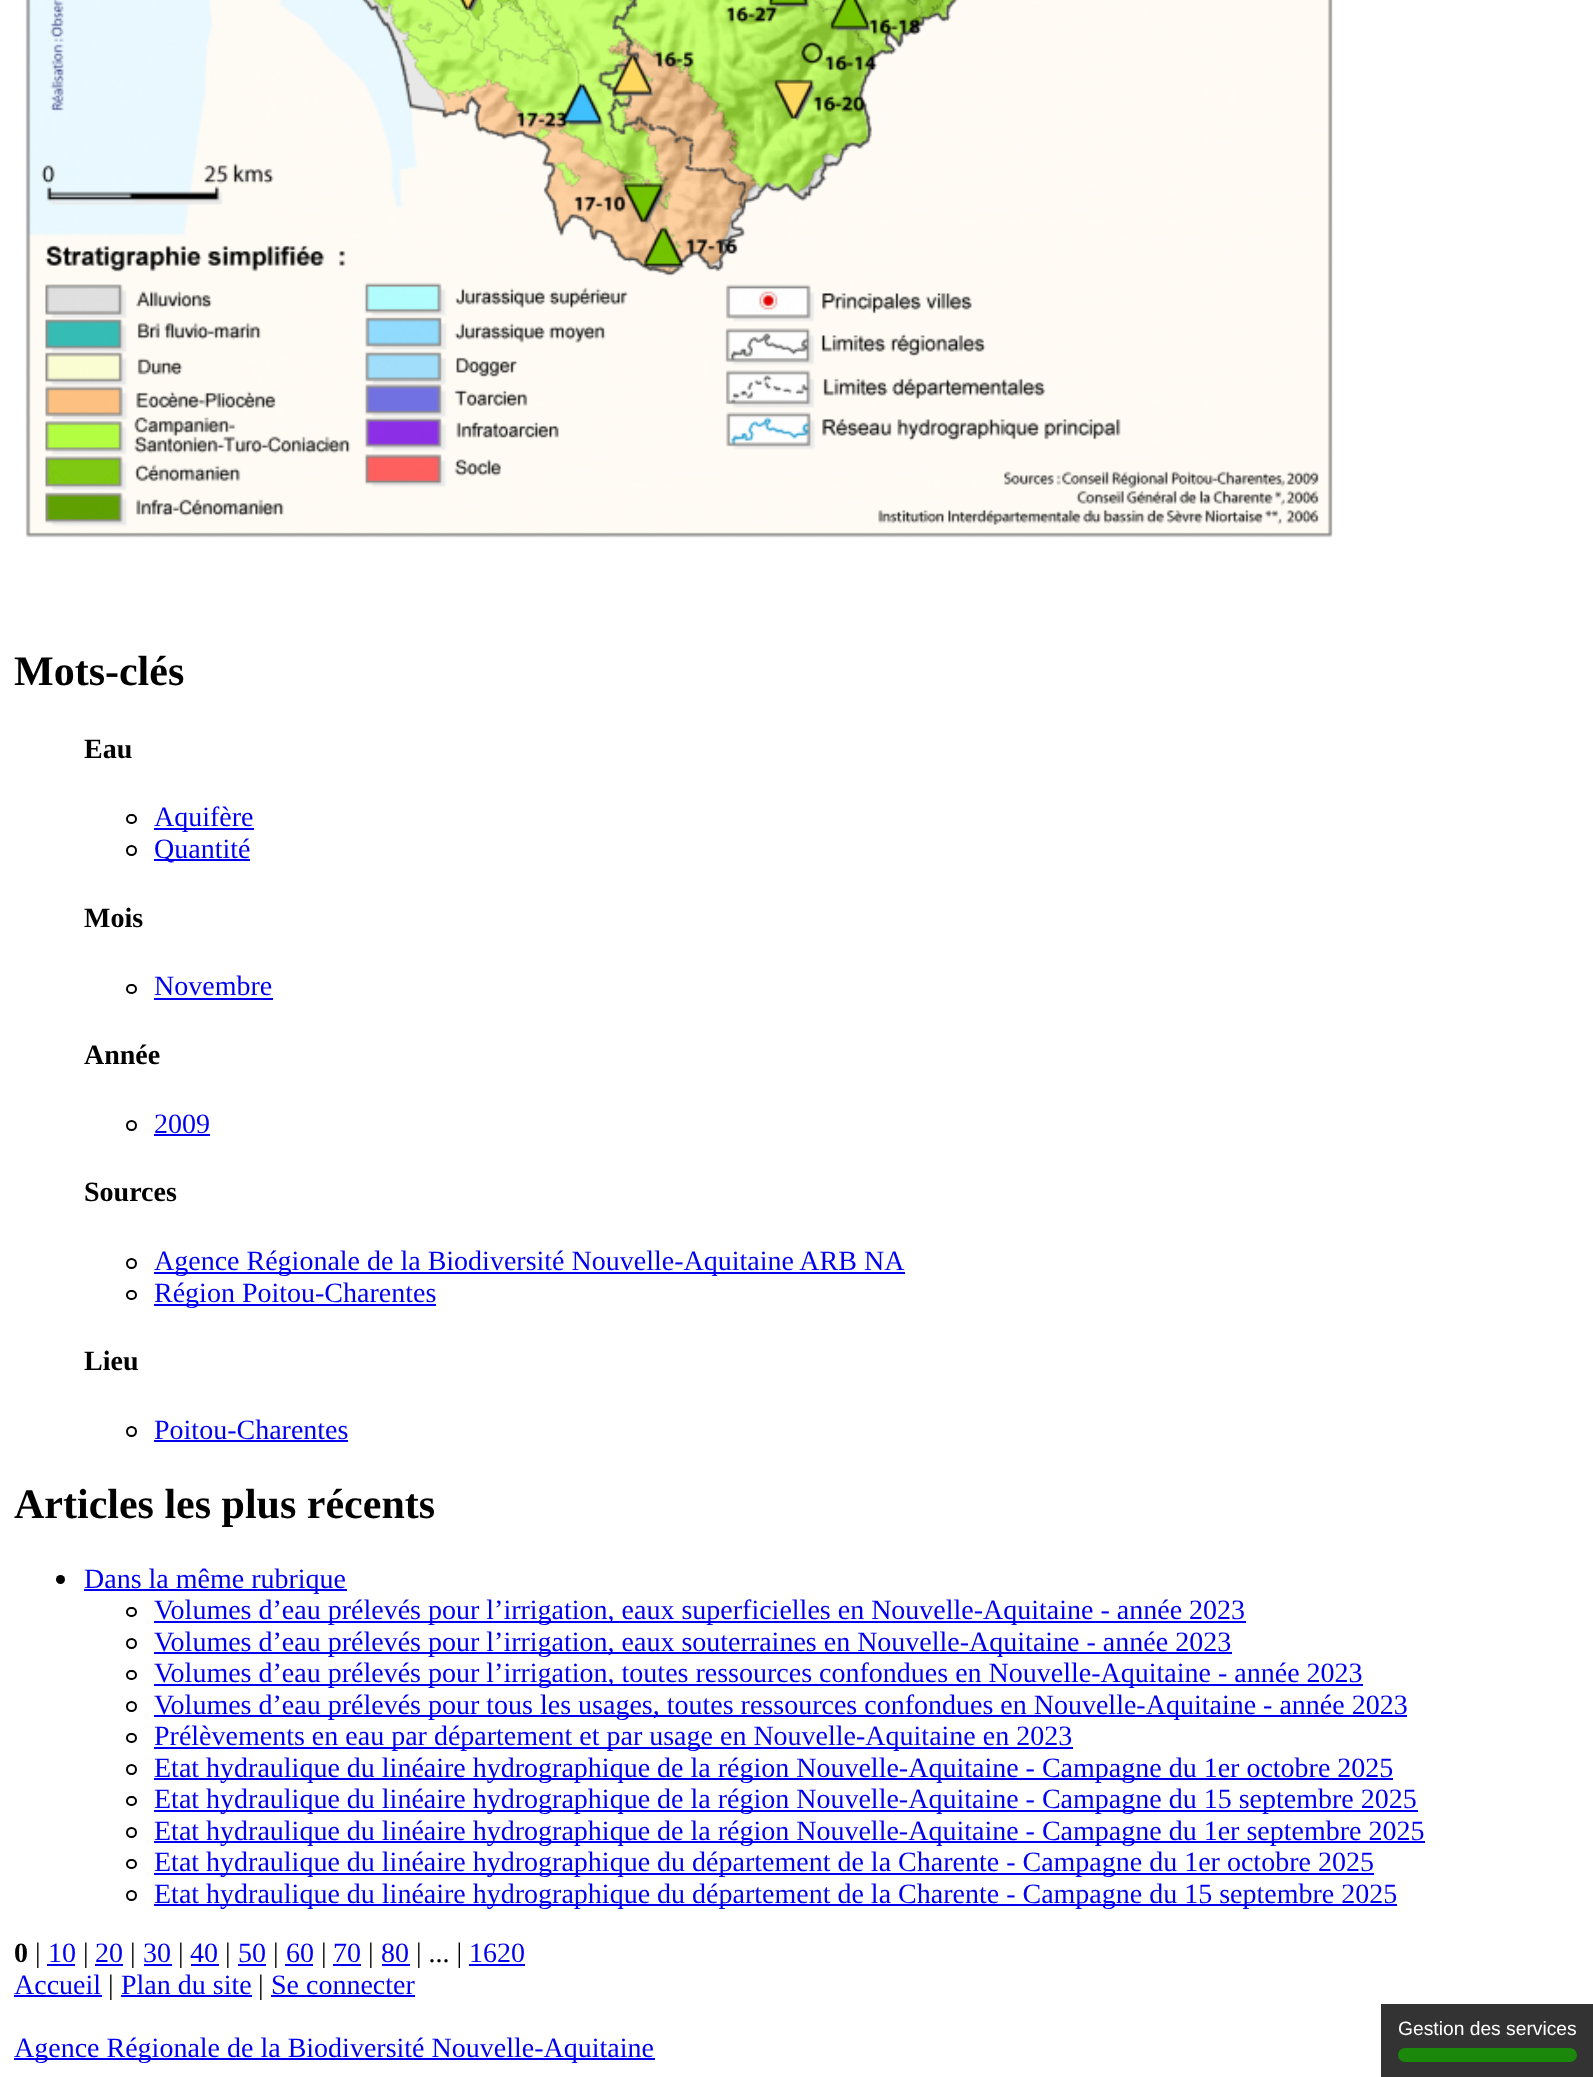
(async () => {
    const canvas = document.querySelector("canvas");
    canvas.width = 1593;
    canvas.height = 2077;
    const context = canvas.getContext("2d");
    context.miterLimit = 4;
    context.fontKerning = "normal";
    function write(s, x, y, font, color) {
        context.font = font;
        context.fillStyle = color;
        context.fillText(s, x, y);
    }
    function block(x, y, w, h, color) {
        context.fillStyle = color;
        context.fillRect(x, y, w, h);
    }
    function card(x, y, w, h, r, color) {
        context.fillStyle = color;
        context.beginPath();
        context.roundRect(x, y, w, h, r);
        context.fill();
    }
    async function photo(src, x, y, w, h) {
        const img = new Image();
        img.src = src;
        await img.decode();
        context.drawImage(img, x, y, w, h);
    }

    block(0, 0, 1593, 2077, "rgb(255, 255, 255)");
    await photo("media/1.png", 25, 0, 1308, 538);
    write("Mots-clés", 14, 685, "bold 42px Liberation Serif", "rgb(0, 0, 0)");
    write("Eau", 84, 758, "bold 28px Liberation Serif", "rgb(0, 0, 0)");
    context.beginPath();
    context.roundRect(127, 815, 9, 8, 4);
    context.strokeStyle = "rgb(0, 0, 0)";
    context.lineWidth = 2;
    context.stroke();
    block(154, 828, 100, 2, "rgb(0, 0, 238)");
    write("Aquifère", 154, 826, "28px Liberation Serif", "rgb(0, 0, 238)");
    context.beginPath();
    context.arc(131.5, 850.5, 4.5, 0, Math.PI * 2);
    context.stroke();
    block(154, 859, 96, 2, "rgb(0, 0, 238)");
    write("Quantité", 154, 858, "28px Liberation Serif", "rgb(0, 0, 238)");
    write("Mois", 84, 927, "bold 28px Liberation Serif", "rgb(0, 0, 0)");
    context.beginPath();
    context.roundRect(127, 985, 9, 8, 4);
    context.stroke();
    write("Novembre", 154, 995, "28px Liberation Serif", "rgb(0, 0, 238)");
    block(154, 998, 119, 2, "rgb(0, 0, 238)");
    write("Année", 84, 1064, "bold 28px Liberation Serif", "rgb(0, 0, 0)");
    context.beginPath();
    context.arc(131.5, 1125.5, 4.5, 0, Math.PI * 2);
    context.stroke();
    write("2009", 154, 1133, "28px Liberation Serif", "rgb(0, 0, 238)");
    block(154, 1134, 56, 2, "rgb(0, 0, 238)");
    write("Sources", 84, 1201, "bold 28px Liberation Serif", "rgb(0, 0, 0)");
    context.beginPath();
    context.arc(131.5, 1263.5, 4.5, 0, Math.PI * 2);
    context.stroke();
    block(154, 1272, 751, 2, "rgb(0, 0, 238)");
    write("Agence Régionale de la Biodiversité Nouvelle-Aquitaine ARB NA", 154, 1270, "28px Liberation Serif", "rgb(0, 0, 238)");
    context.beginPath();
    context.roundRect(127, 1291, 9, 8, 4);
    context.stroke();
    block(154, 1304, 282, 2, "rgb(0, 0, 238)");
    write("Région Poitou-Charentes", 154, 1302, "28px Liberation Serif", "rgb(0, 0, 238)");
    write("Lieu", 84, 1370, "bold 28px Liberation Serif", "rgb(0, 0, 0)");
    context.beginPath();
    context.arc(131.5, 1431.5, 4.5, 0, Math.PI * 2);
    context.stroke();
    write("Poitou-Charentes", 154, 1439, "28px Liberation Serif", "rgb(0, 0, 238)");
    block(154, 1440, 194, 2, "rgb(0, 0, 238)");
    write("Articles les plus récents", 14, 1518, "bold 42px Liberation Serif", "rgb(0, 0, 0)");
    context.beginPath();
    context.arc(60.5, 1579.5, 4.5, 0, Math.PI * 2);
    context.fill();
    block(84, 1589, 263, 2, "rgb(0, 0, 238)");
    write("Dans la même rubrique", 84, 1588, "28px Liberation Serif", "rgb(0, 0, 238)");
    context.beginPath();
    context.roundRect(127, 1608, 9, 8, 4);
    context.stroke();
    block(154, 1621, 1092, 2, "rgb(0, 0, 238)");
    write("Volumes d’eau prélevés pour l’irrigation, eaux superficielles en Nouvelle-Aquitaine - année 2023", 154, 1619, "28px Liberation Serif", "rgb(0, 0, 238)");
    context.beginPath();
    context.arc(131.5, 1643.5, 4.5, 0, Math.PI * 2);
    context.stroke();
    block(154, 1652, 1078, 2, "rgb(0, 0, 238)");
    write("Volumes d’eau prélevés pour l’irrigation, eaux souterraines en Nouvelle-Aquitaine - année 2023", 154, 1651, "28px Liberation Serif", "rgb(0, 0, 238)");
    context.beginPath();
    context.roundRect(127, 1671, 9, 8, 4);
    context.stroke();
    block(154, 1684, 1209, 2, "rgb(0, 0, 238)");
    write("Volumes d’eau prélevés pour l’irrigation, toutes ressources confondues en Nouvelle-Aquitaine - année 2023", 154, 1682, "28px Liberation Serif", "rgb(0, 0, 238)");
    context.beginPath();
    context.arc(131.5, 1706.5, 4.5, 0, Math.PI * 2);
    context.stroke();
    block(154, 1715, 1253, 2, "rgb(0, 0, 238)");
    write("Volumes d’eau prélevés pour tous les usages, toutes ressources confondues en Nouvelle-Aquitaine - année 2023", 154, 1714, "28px Liberation Serif", "rgb(0, 0, 238)");
    context.beginPath();
    context.roundRect(127, 1734, 9, 8, 4);
    context.stroke();
    block(154, 1747, 919, 2, "rgb(0, 0, 238)");
    write("Prélèvements en eau par département et par usage en Nouvelle-Aquitaine en 2023", 154, 1745, "28px Liberation Serif", "rgb(0, 0, 238)");
    context.beginPath();
    context.arc(131.5, 1769.5, 4.5, 0, Math.PI * 2);
    context.stroke();
    block(154, 1778, 1239, 2, "rgb(0, 0, 238)");
    write("Etat hydraulique du linéaire hydrographique de la région Nouvelle-Aquitaine - Campagne du 1er octobre 2025", 154, 1777, "28px Liberation Serif", "rgb(0, 0, 238)");
    context.beginPath();
    context.roundRect(127, 1797, 9, 8, 4);
    context.stroke();
    block(154, 1810, 1264, 2, "rgb(0, 0, 238)");
    write("Etat hydraulique du linéaire hydrographique de la région Nouvelle-Aquitaine - Campagne du 15 septembre 2025", 154, 1808, "28px Liberation Serif", "rgb(0, 0, 238)");
    context.beginPath();
    context.arc(131.5, 1832.5, 4.5, 0, Math.PI * 2);
    context.stroke();
    block(154, 1841, 1271, 2, "rgb(0, 0, 238)");
    write("Etat hydraulique du linéaire hydrographique de la région Nouvelle-Aquitaine - Campagne du 1er septembre 2025", 154, 1840, "28px Liberation Serif", "rgb(0, 0, 238)");
    context.beginPath();
    context.roundRect(127, 1860, 9, 8, 4);
    context.stroke();
    block(154, 1873, 1220, 2, "rgb(0, 0, 238)");
    write("Etat hydraulique du linéaire hydrographique du département de la Charente - Campagne du 1er octobre 2025", 154, 1871, "28px Liberation Serif", "rgb(0, 0, 238)");
    context.beginPath();
    context.arc(131.5, 1895.5, 4.5, 0, Math.PI * 2);
    context.stroke();
    block(154, 1904, 1243, 2, "rgb(0, 0, 238)");
    write("Etat hydraulique du linéaire hydrographique du département de la Charente - Campagne du 15 septembre 2025", 154, 1903, "28px Liberation Serif", "rgb(0, 0, 238)");
    write("0", 14, 1962, "bold 28px Liberation Serif", "rgb(0, 0, 0)");
    write("|", 35, 1962, "28px Liberation Serif", "rgb(0, 0, 0)");
    write("10", 48, 1962, "28px Liberation Serif", "rgb(0, 0, 238)");
    block(47, 1964, 28, 2, "rgb(0, 0, 238)");
    write("|", 83, 1962, "28px Liberation Serif", "rgb(0, 0, 0)");
    write("20", 95, 1962, "28px Liberation Serif", "rgb(0, 0, 238)");
    block(95, 1964, 28, 2, "rgb(0, 0, 238)");
    write("|", 130, 1962, "28px Liberation Serif", "rgb(0, 0, 0)");
    write("30", 143, 1962, "28px Liberation Serif", "rgb(0, 0, 238)");
    block(144, 1964, 28, 2, "rgb(0, 0, 238)");
    write("|", 178, 1962, "28px Liberation Serif", "rgb(0, 0, 0)");
    write("40", 190, 1962, "28px Liberation Serif", "rgb(0, 0, 238)");
    block(191, 1964, 28, 2, "rgb(0, 0, 238)");
    write("|", 225, 1962, "28px Liberation Serif", "rgb(0, 0, 0)");
    write("50", 238, 1962, "28px Liberation Serif", "rgb(0, 0, 238)");
    block(238, 1964, 28, 2, "rgb(0, 0, 238)");
    write("|", 273, 1962, "28px Liberation Serif", "rgb(0, 0, 0)");
    write("60", 286, 1962, "28px Liberation Serif", "rgb(0, 0, 238)");
    block(285, 1964, 28, 2, "rgb(0, 0, 238)");
    write("|", 321, 1962, "28px Liberation Serif", "rgb(0, 0, 0)");
    write("70", 333, 1962, "28px Liberation Serif", "rgb(0, 0, 238)");
    block(333, 1964, 28, 2, "rgb(0, 0, 238)");
    write("|", 368, 1962, "28px Liberation Serif", "rgb(0, 0, 0)");
    write("80", 381, 1962, "28px Liberation Serif", "rgb(0, 0, 238)");
    block(382, 1964, 28, 2, "rgb(0, 0, 238)");
    write("| ... |", 416, 1962, "28px Liberation Serif", "rgb(0, 0, 0)");
    write("1620", 469, 1962, "28px Liberation Serif", "rgb(0, 0, 238)");
    block(469, 1964, 56, 2, "rgb(0, 0, 238)");
    write("Accueil", 14, 1994, "28px Liberation Serif", "rgb(0, 0, 238)");
    block(14, 1995, 88, 2, "rgb(0, 0, 238)");
    write("|", 108, 1994, "28px Liberation Serif", "rgb(0, 0, 0)");
    write("Plan du site", 121, 1994, "28px Liberation Serif", "rgb(0, 0, 238)");
    block(121, 1995, 131, 2, "rgb(0, 0, 238)");
    write("|", 258, 1994, "28px Liberation Serif", "rgb(0, 0, 0)");
    write("Se connecter", 271, 1994, "28px Liberation Serif", "rgb(0, 0, 238)");
    block(271, 1995, 144, 2, "rgb(0, 0, 238)");
    block(14, 2058, 641, 2, "rgb(0, 0, 238)");
    write("Agence Régionale de la Biodiversité Nouvelle-Aquitaine", 14, 2057, "28px Liberation Serif", "rgb(0, 0, 238)");
    block(1381, 2004, 212, 73, "rgb(51, 51, 51)");
    write("Gestion des services", 1398, 2035, "19.25px Liberation Sans", "rgb(255, 255, 255)");
    card(1398, 2048, 179, 14, 7, "rgb(27, 135, 11)");
})();
